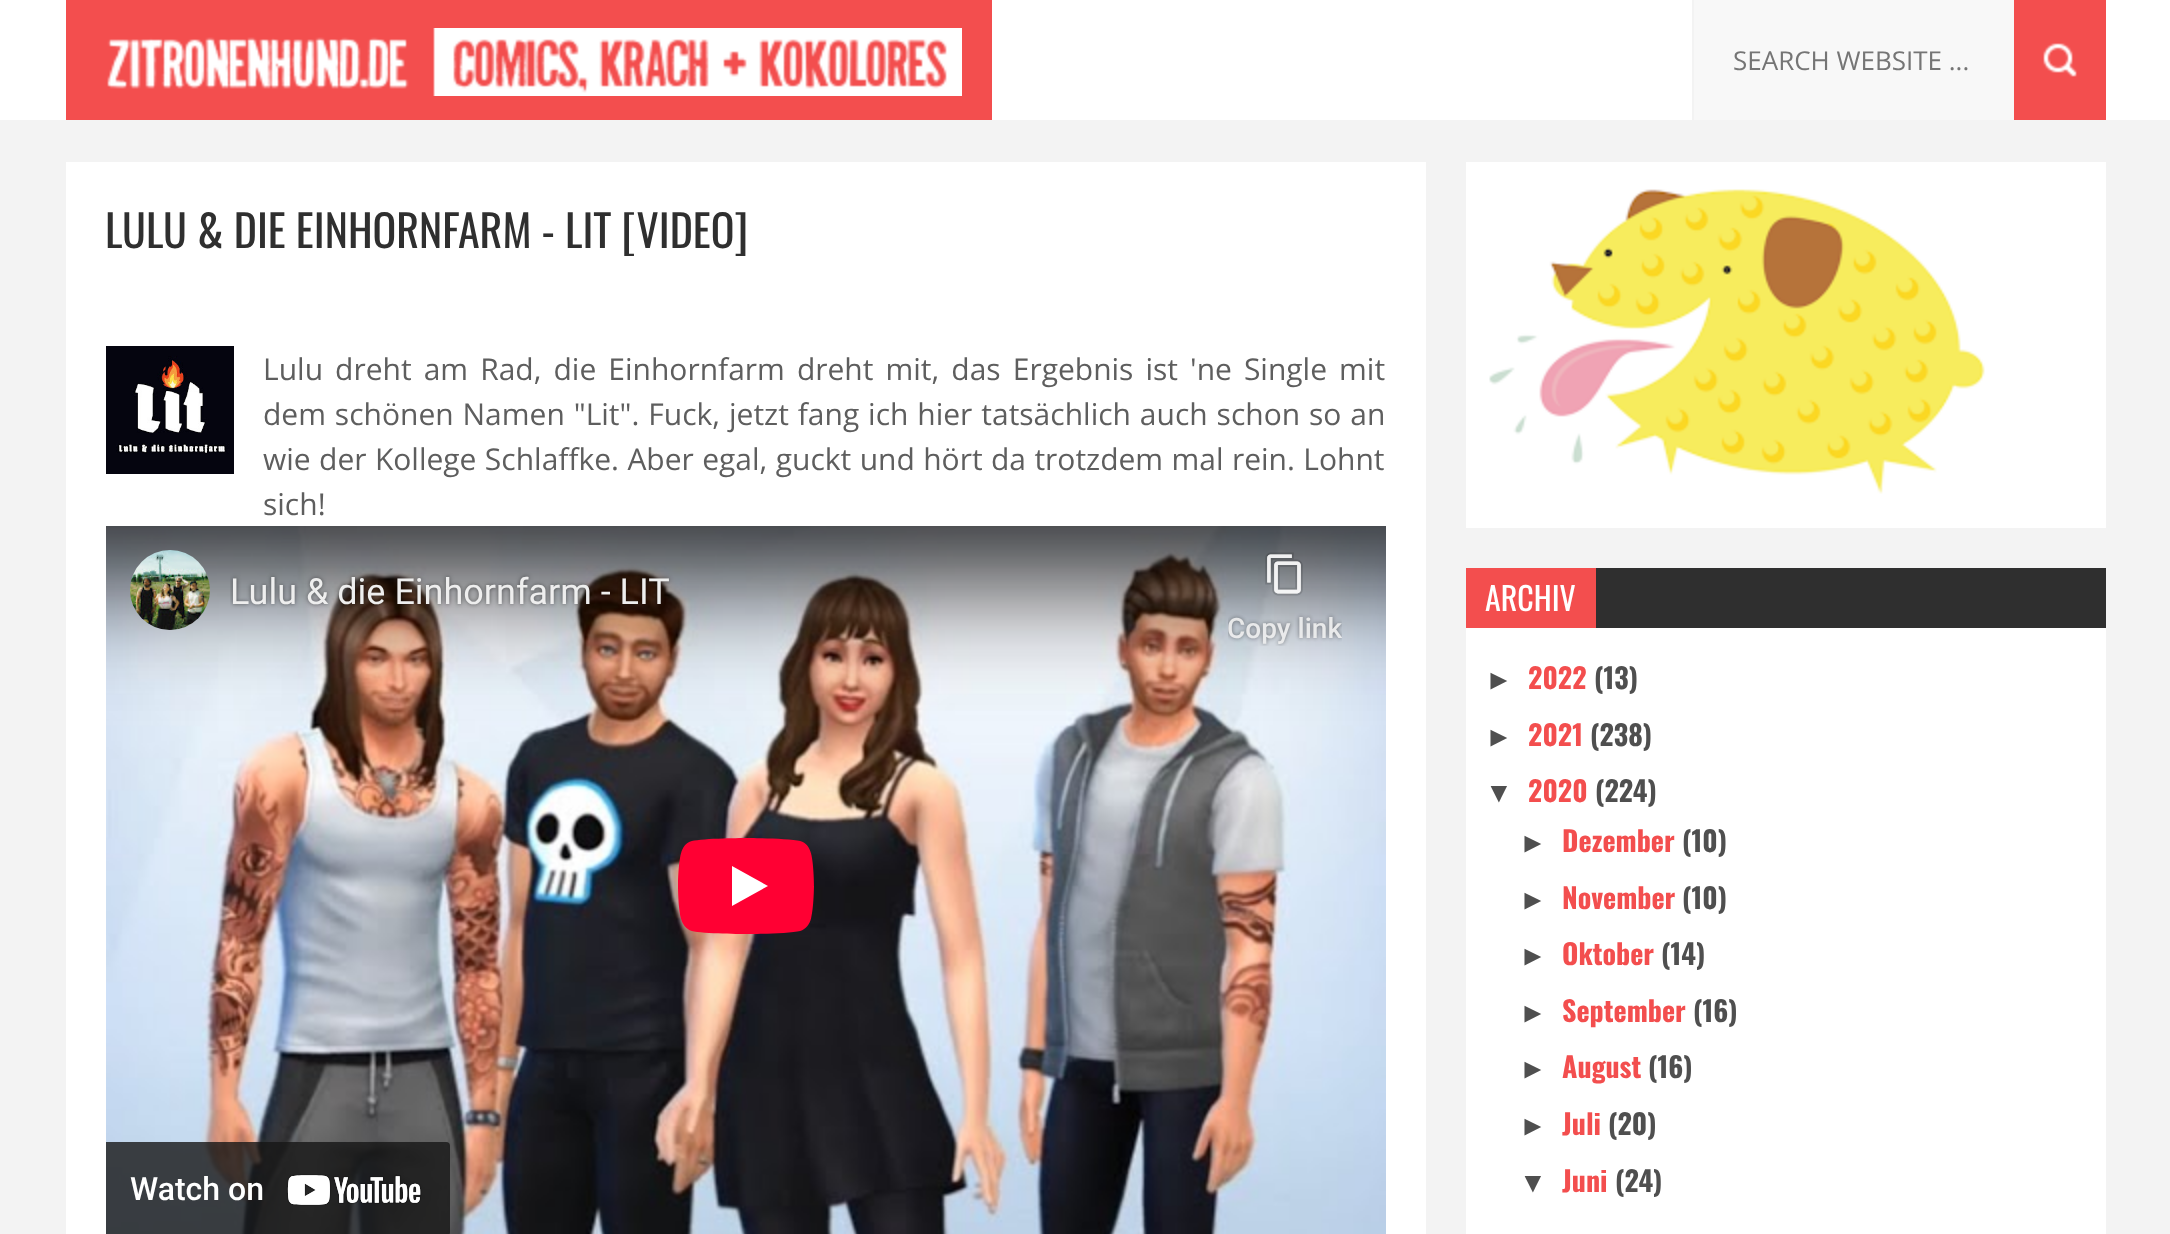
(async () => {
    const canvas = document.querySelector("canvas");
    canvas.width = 2170;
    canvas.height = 1234;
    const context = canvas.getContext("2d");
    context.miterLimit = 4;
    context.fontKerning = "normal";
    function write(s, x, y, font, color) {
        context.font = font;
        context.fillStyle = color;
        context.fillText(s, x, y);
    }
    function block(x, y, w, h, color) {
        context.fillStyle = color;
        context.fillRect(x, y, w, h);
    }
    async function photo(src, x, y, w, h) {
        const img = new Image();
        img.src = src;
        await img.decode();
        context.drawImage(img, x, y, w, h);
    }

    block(0, 0, 2170, 1234, "rgb(243, 243, 243)");
    block(0, 0, 2170, 120, "rgb(255, 255, 255)");
    block(66, 0, 926, 120, "rgb(243, 78, 78)");
    await photo("media/1.png", 107, 28, 855, 68);
    block(1694, 0, 320, 120, "rgb(248, 248, 248)");
    block(1692, 0, 2, 120, "rgb(243, 243, 243)");
    write("SEARCH WEBSITE ...", 1733, 70, "26px Open Sans", "rgb(117, 117, 117)");
    block(2014, 0, 92, 120, "rgb(243, 78, 78)");
    await photo("media/2.png", 2043, 43, 34, 34);
    block(66, 162, 1360, 1072, "rgb(255, 255, 255)");
    write("LULU & DIE EINHORNFARM - LIT [VIDEO]", 105, 248, "44px Oswald", "rgb(47, 47, 47)");
    await photo("media/3.png", 106, 346, 128, 128);
    context.wordSpacing = "4.25px";
    write("Lulu dreht am Rad, die Einhornfarm dreht mit, das Ergebnis ist 'ne Single mit", 263, 380, "30px Open Sans", "rgb(94, 94, 94)");
    context.wordSpacing = "1.1px";
    write("dem schönen Namen \"Lit\". Fuck, jetzt fang ich hier tatsächlich auch schon so an", 263, 425, "30px Open Sans", "rgb(94, 94, 94)");
    context.wordSpacing = "0.6px";
    write("wie der Kollege Schlaffke. Aber egal, guckt und hört da trotzdem mal rein. Lohnt", 263, 470, "30px Open Sans", "rgb(94, 94, 94)");
    context.wordSpacing = "0px";
    write("sich!", 263, 515, "30px Open Sans", "rgb(94, 94, 94)");
    await photo("media/4.png", 106, 526, 1280, 708);
    block(1466, 162, 640, 366, "rgb(255, 255, 255)");
    await photo("media/5.png", 1489, 189, 496, 305);
    block(1596, 568, 510, 60, "rgb(47, 47, 47)");
    block(1466, 568, 130, 60, "rgb(243, 78, 78)");
    write("ARCHIV", 1485, 611, "32px Oswald", "rgb(255, 255, 255)");
    block(1466, 628, 640, 606, "rgb(255, 255, 255)");
    write("►", 1485, 689, "bold 28px Liberation Sans", "rgb(79, 79, 79)");
    write("2022", 1528, 689, "bold 28px Oswald", "rgb(243, 78, 78)");
    write("(13)", 1594, 689, "bold 28px Oswald", "rgb(79, 79, 79)");
    write("►", 1485, 746, "bold 28px Liberation Sans", "rgb(79, 79, 79)");
    write("2021", 1528, 746, "bold 28px Oswald", "rgb(243, 78, 78)");
    write("(238)", 1590, 746, "bold 28px Oswald", "rgb(79, 79, 79)");
    write("▼", 1485, 802, "bold 28px Liberation Sans", "rgb(79, 79, 79)");
    write("2020", 1528, 802, "bold 28px Oswald", "rgb(243, 78, 78)");
    write("(224)", 1595, 802, "bold 28px Oswald", "rgb(79, 79, 79)");
    write("►", 1519, 852, "bold 28px Liberation Sans", "rgb(79, 79, 79)");
    write("Dezember", 1562, 852, "bold 28px Oswald", "rgb(243, 78, 78)");
    write("(10)", 1682, 852, "bold 28px Oswald", "rgb(79, 79, 79)");
    write("►", 1519, 909, "bold 28px Liberation Sans", "rgb(79, 79, 79)");
    write("November", 1562, 909, "bold 28px Oswald", "rgb(243, 78, 78)");
    write("(10)", 1682, 909, "bold 28px Oswald", "rgb(79, 79, 79)");
    write("►", 1519, 965, "bold 28px Liberation Sans", "rgb(79, 79, 79)");
    write("Oktober", 1562, 965, "bold 28px Oswald", "rgb(243, 78, 78)");
    write("(14)", 1661, 965, "bold 28px Oswald", "rgb(79, 79, 79)");
    write("►", 1519, 1022, "bold 28px Liberation Sans", "rgb(79, 79, 79)");
    write("September", 1562, 1022, "bold 28px Oswald", "rgb(243, 78, 78)");
    write("(16)", 1693, 1022, "bold 28px Oswald", "rgb(79, 79, 79)");
    write("►", 1519, 1078, "bold 28px Liberation Sans", "rgb(79, 79, 79)");
    write("August", 1562, 1078, "bold 28px Oswald", "rgb(243, 78, 78)");
    write("(16)", 1648, 1078, "bold 28px Oswald", "rgb(79, 79, 79)");
    write("►", 1519, 1135, "bold 28px Liberation Sans", "rgb(79, 79, 79)");
    write("Juli", 1562, 1135, "bold 28px Oswald", "rgb(243, 78, 78)");
    write("(20)", 1608, 1135, "bold 28px Oswald", "rgb(79, 79, 79)");
    write("▼", 1519, 1192, "bold 28px Liberation Sans", "rgb(79, 79, 79)");
    write("Juni", 1562, 1192, "bold 28px Oswald", "rgb(243, 78, 78)");
    write("(24)", 1615, 1192, "bold 28px Oswald", "rgb(79, 79, 79)");
})();
